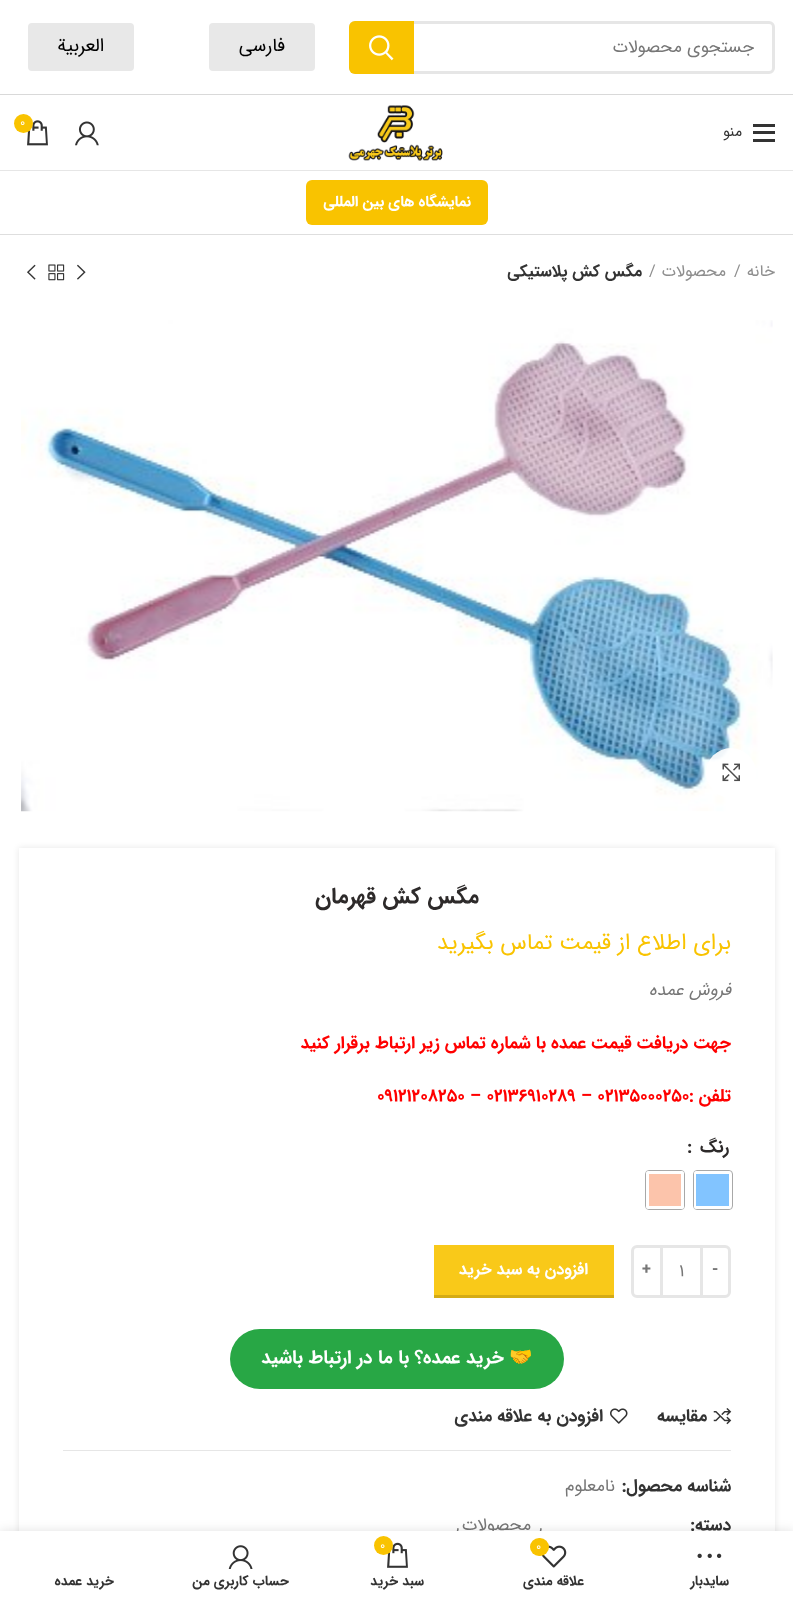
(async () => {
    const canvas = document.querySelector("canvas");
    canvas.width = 793;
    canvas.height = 1600;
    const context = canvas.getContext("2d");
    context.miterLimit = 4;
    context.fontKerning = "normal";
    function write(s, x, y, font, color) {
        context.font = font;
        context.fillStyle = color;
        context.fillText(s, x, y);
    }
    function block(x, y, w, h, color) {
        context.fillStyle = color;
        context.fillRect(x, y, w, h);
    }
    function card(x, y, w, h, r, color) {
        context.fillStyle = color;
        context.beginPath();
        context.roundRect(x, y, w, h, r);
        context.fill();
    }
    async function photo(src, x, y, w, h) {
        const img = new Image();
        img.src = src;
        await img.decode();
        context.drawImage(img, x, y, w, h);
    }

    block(0, 0, 793, 1600, "rgb(255, 255, 255)");
    block(0, 94, 793, 1, "rgb(217, 217, 217)");
    context.beginPath();
    context.roundRect(350.5, 22.5, 423, 50, 4.5);
    context.strokeStyle = "rgb(230, 230, 230)";
    context.lineWidth = 3;
    context.stroke();
    context.direction = "rtl";
    write("جستجوی محصولات", 754, 52, "17.5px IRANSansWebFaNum", "rgb(119, 119, 119)");
    context.fillStyle = "rgb(249, 195, 0)";
    context.beginPath();
    context.roundRect(349, 21, 65, 53, [6, 0, 0, 6]);
    context.fill();
    await photo("media/1.png", 369, 35, 25, 26);
    card(209, 23, 106, 48, 4, "rgb(232, 232, 232)");
    write("فارسی", 285, 51, "18.75px IRANSansWebFaNum", "rgb(0, 0, 0)");
    card(28, 23, 106, 48, 4, "rgb(232, 232, 232)");
    write("العربیة", 104, 51, "18.75px IRANSansWebFaNum", "rgb(0, 0, 0)");
    block(0, 170, 793, 1, "rgb(230, 230, 230)");
    await photo("media/2.png", 348, 105, 95, 56);
    await photo("media/3.png", 75, 121, 24, 25);
    await photo("media/4.png", 27, 120, 21, 26);
    context.fillStyle = "rgb(249, 195, 0)";
    context.beginPath();
    context.arc(23.5, 123.5, 9.5, 0, Math.PI * 2);
    context.fill();
    context.direction = "ltr";
    write("0", 20, 126, "12px IRANSansWebFaNum", "rgb(255, 255, 255)");
    block(753, 131, 22, 3, "rgb(51, 51, 51)");
    block(753, 124, 22, 3, "rgb(51, 51, 51)");
    block(753, 139, 22, 3, "rgb(51, 51, 51)");
    context.direction = "rtl";
    write("منو", 742, 136, "15px IRANSansWebFaNum", "rgb(51, 51, 51)");
    block(0, 234, 793, 1, "rgb(222, 222, 222)");
    card(306, 180, 182, 45, 6, "rgb(249, 195, 0)");
    write("نمایشگاه های بین المللی", 471, 206, "bold 15px IRANSansWebFaNum", "rgb(255, 255, 255)");
    write("خانه", 775, 276, "16.25px IRANSansWebFaNum", "rgb(142, 142, 142)");
    context.direction = "ltr";
    write("/", 734, 276, "16.25px IRANSansWebFaNum", "rgb(142, 142, 142)");
    context.direction = "rtl";
    write("محصولات", 726, 276, "16.25px IRANSansWebFaNum", "rgb(142, 142, 142)");
    context.direction = "ltr";
    write("/", 649, 276, "16.25px IRANSansWebFaNum", "rgb(142, 142, 142)");
    context.direction = "rtl";
    write("مگس کش پلاستیکی", 642, 276, "bold 16.25px IRANSansWebFaNum", "rgb(51, 51, 51)");
    await photo("media/5.png", 77, 264, 9, 16);
    await photo("media/6.png", 48, 264, 17, 17);
    await photo("media/7.png", 27, 264, 9, 16);
    await photo("media/8.png", 21, 320, 752, 492);
    context.fillStyle = "rgba(255, 255, 255, 0.9)";
    context.beginPath();
    context.arc(731, 773, 25, 0, Math.PI * 2);
    context.fill();
    await photo("media/9.png", 722, 763, 18, 19);
    context.save();
    context.beginPath();
    context.moveTo(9, 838);
    context.lineTo(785, 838);
    context.lineTo(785, 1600);
    context.lineTo(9, 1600);
    context.closePath();
    context.moveTo(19, 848);
    context.lineTo(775, 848);
    context.lineTo(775, 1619);
    context.lineTo(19, 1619);
    context.closePath();
    context.clip("evenodd");
    context.fillStyle = "rgba(0, 0, 0, 0.1)";
    context.filter = "blur(3px)";
    context.beginPath();
    context.rect(19, 848, 756, 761);
    context.fill();
    context.filter = "none";
    context.restore();
    write("مگس کش قهرمان", 479, 903, "bold 22.5px IRANSansWebFaNum", "rgb(45, 42, 42)");
    write("برای اطلاع از قیمت تماس بگیرید", 731, 949, "22.5px IRANSansWebFaNum", "rgb(249, 195, 0)");
    write("فروش عمده", 731, 995, "italic 17.5px IRANSansWebFaNum", "rgb(119, 119, 119)");
    write("جهت دریافت قیمت عمده با شماره تماس زیر ارتباط برقرار کنید", 731, 1048, "bold 17.5px IRANSansWebFaNum", "rgb(255, 0, 0)");
    write("تلفن :", 731, 1101, "bold 17.5px IRANSansWebFaNum", "rgb(255, 0, 0)");
    context.direction = "ltr";
    write("09121208250 – 02136910289 – 02135000250", 377, 1101, "bold 17.5px IRANSansWebFaNum", "rgb(255, 0, 0)");
    context.direction = "rtl";
    write("رنگ", 729, 1152, "bold 17.5px IRANSansWebFaNum", "rgb(45, 42, 42)");
    context.direction = "ltr";
    write(":", 687, 1152, "bold 17.5px IRANSansWebFaNum", "rgb(45, 42, 42)");
    context.beginPath();
    context.roundRect(693.5, 1170.5, 39, 39, 3.5);
    context.strokeStyle = "rgb(168, 168, 168)";
    context.lineWidth = 1;
    context.stroke();
    card(694, 1171, 37, 38, 2.5, "rgb(255, 255, 255)");
    block(696, 1174, 33, 32, "rgb(130, 196, 255)");
    context.beginPath();
    context.roundRect(645.5, 1170.5, 39, 39, 3.5);
    context.stroke();
    card(646, 1171, 38, 38, 2.5, "rgb(255, 255, 255)");
    block(649, 1174, 32, 32, "rgb(252, 196, 171)");
    context.beginPath();
    context.roundRect(701.5, 1246.5, 28, 50, [0, 4.5, 4.5, 0]);
    context.strokeStyle = "rgb(230, 230, 230)";
    context.lineWidth = 3;
    context.stroke();
    write("-", 712, 1274, "bold 16.25px IRANSansWebFaNum", "rgb(119, 119, 119)");
    block(663, 1245, 37, 3, "rgb(230, 230, 230)");
    block(663, 1295, 37, 3, "rgb(230, 230, 230)");
    write("1", 679, 1276, "17.5px IRANSansWebFaNum", "rgb(119, 119, 119)");
    context.beginPath();
    context.roundRect(632.5, 1246.5, 29, 50, [4.5, 0, 0, 4.5]);
    context.stroke();
    write("+", 642, 1274, "bold 16.25px IRANSansWebFaNum", "rgb(119, 119, 119)");
    block(434, 1245, 180, 50, "rgb(249, 201, 25)");
    block(434, 1295, 180, 3, "rgb(212, 171, 21)");
    context.direction = "rtl";
    write("افزودن به سبد خرید", 588, 1274, "bold 16.25px IRANSansWebFaNum", "rgb(255, 255, 255)");
    card(230, 1329, 334, 60, 30, "rgb(40, 167, 69)");
    write("🤝", 533, 1363, "bold 18.75px Noto Color Emoji", "rgb(255, 255, 255)");
    write("خرید عمده؟ با ما در ارتباط باشید", 504, 1363, "bold 18.75px IRANSansWebFaNum", "rgb(255, 255, 255)");
    await photo("media/10.png", 713, 1408, 19, 17);
    write("مقایسه", 707, 1421, "bold 17.5px IRANSansWebFaNum", "rgb(51, 51, 51)");
    await photo("media/11.png", 610, 1408, 18, 16);
    write("افزودن به علاقه مندی", 603, 1421, "bold 17.5px IRANSansWebFaNum", "rgb(51, 51, 51)");
    block(63, 1450, 668, 1, "rgb(230, 230, 230)");
    write("شناسه محصول:", 731, 1491, "bold 17.5px IRANSansWebFaNum", "rgb(51, 51, 51)");
    write("نامعلوم", 615, 1491, "17.5px IRANSansWebFaNum", "rgb(119, 119, 119)");
    write("دسته:", 731, 1530, "bold 17.5px IRANSansWebFaNum", "rgb(51, 51, 51)");
    context.direction = "ltr";
    write(",", 539, 1530, "17.5px IRANSansWebFaNum", "rgb(119, 119, 119)");
    context.direction = "rtl";
    write("محصولات", 531, 1530, "17.5px IRANSansWebFaNum", "rgb(119, 119, 119)");
    context.direction = "ltr";
    write(",", 456, 1530, "17.5px IRANSansWebFaNum", "rgb(119, 119, 119)");
    context.fillStyle = "rgba(0, 0, 0, 0.12)";
    context.filter = "blur(5.5px)";
    context.beginPath();
    context.rect(0, 1531, 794, 69);
    context.fill();
    context.filter = "none";
    block(0, 1531, 793, 69, "rgb(255, 255, 255)");
    await photo("media/12.png", 697, 1553, 25, 5);
    context.direction = "rtl";
    write("سایدبار", 729, 1585, "bold 13.75px IRANSansWebFaNum", "rgb(51, 51, 51)");
    await photo("media/13.png", 541, 1545, 26, 23);
    card(530, 1538, 19, 18, 9, "rgb(249, 195, 0)");
    context.direction = "ltr";
    write("0", 536, 1550, "12px IRANSansWebFaNum", "rgb(255, 255, 255)");
    context.direction = "rtl";
    write("علاقه مندی", 584, 1585, "bold 13.75px IRANSansWebFaNum", "rgb(51, 51, 51)");
    await photo("media/14.png", 387, 1542, 21, 26);
    context.fillStyle = "rgb(249, 195, 0)";
    context.beginPath();
    context.arc(383.5, 1545.5, 9.5, 0, Math.PI * 2);
    context.fill();
    context.direction = "ltr";
    write("0", 380, 1549, "12px IRANSansWebFaNum", "rgb(255, 255, 255)");
    context.direction = "rtl";
    write("سبد خرید", 424, 1585, "bold 13.75px IRANSansWebFaNum", "rgb(51, 51, 51)");
    await photo("media/15.png", 228, 1545, 25, 24);
    write("حساب کاربری من", 289, 1585, "bold 13.75px IRANSansWebFaNum", "rgb(51, 51, 51)");
    write("خرید عمده", 114, 1585, "bold 13.75px IRANSansWebFaNum", "rgb(51, 51, 51)");
})();
